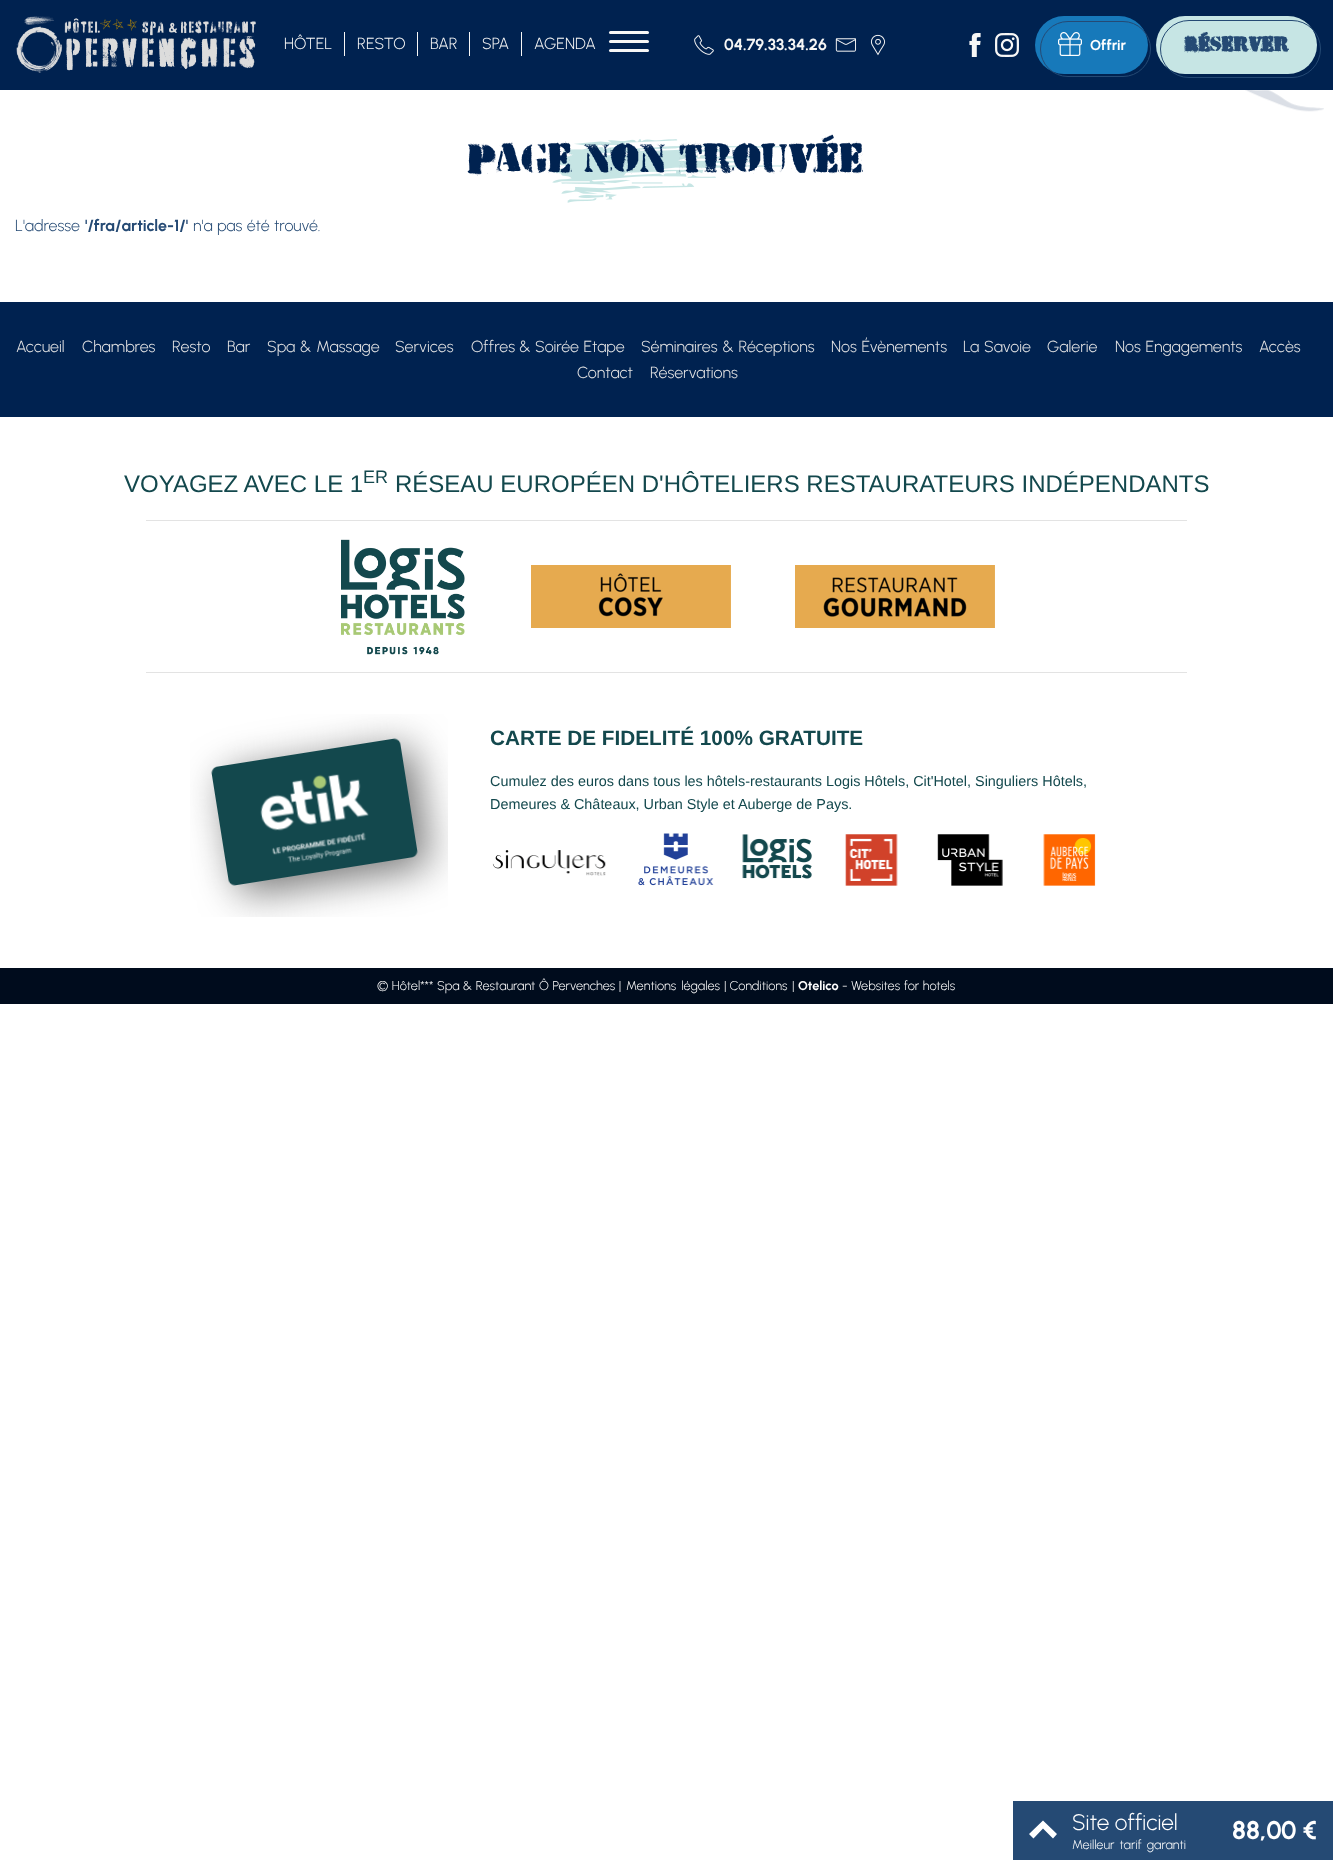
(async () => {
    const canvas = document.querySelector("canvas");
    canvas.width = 1333;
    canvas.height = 1860;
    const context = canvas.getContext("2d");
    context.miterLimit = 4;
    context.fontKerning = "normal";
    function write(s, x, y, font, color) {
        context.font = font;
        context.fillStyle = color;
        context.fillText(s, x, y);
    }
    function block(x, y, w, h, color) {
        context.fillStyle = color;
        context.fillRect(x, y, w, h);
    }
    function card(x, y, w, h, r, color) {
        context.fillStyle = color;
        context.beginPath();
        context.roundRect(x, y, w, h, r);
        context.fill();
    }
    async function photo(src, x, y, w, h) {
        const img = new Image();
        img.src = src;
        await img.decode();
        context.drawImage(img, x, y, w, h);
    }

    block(0, 0, 1333, 1860, "rgb(255, 255, 255)");
    block(0, 0, 1333, 90, "rgb(0, 34, 80)");
    await photo("media/1.png", 16, 16, 240, 57);
    write("HÔTEL", 284, 49, "300 16px Urbanist", "rgb(247, 247, 246)");
    block(344, 32, 1, 24, "rgb(247, 247, 246)");
    write("RESTO", 357, 49, "300 16px Urbanist", "rgb(247, 247, 246)");
    block(417, 32, 1, 24, "rgb(247, 247, 246)");
    write("BAR", 430, 49, "300 16px Urbanist", "rgb(247, 247, 246)");
    block(469, 32, 1, 24, "rgb(247, 247, 246)");
    write("SPA", 482, 49, "300 16px Urbanist", "rgb(247, 247, 246)");
    block(521, 32, 1, 24, "rgb(247, 247, 246)");
    write("AGENDA", 534, 49, "300 16px Urbanist", "rgb(247, 247, 246)");
    card(609, 49, 40, 3, 1.5, "rgb(247, 247, 246)");
    card(609, 31, 40, 3, 1.5, "rgb(247, 247, 246)");
    card(609, 40, 40, 3, 1.5, "rgb(247, 247, 246)");
    await photo("media/2.png", 694, 35, 20, 20);
    write("04.79.33.34.26", 724, 50, "bold 16px Urbanist", "rgb(247, 247, 246)");
    await photo("media/3.png", 835, 38, 22, 14);
    await photo("media/4.png", 870, 34, 16, 22);
    await photo("media/5.png", 969, 33, 12, 24);
    await photo("media/6.png", 995, 33, 24, 24);
    card(1035, 16, 113, 58, 29, "rgb(23, 121, 186)");
    await photo("media/7.png", 1058, 32, 24, 24);
    context.beginPath();
    context.roundRect(1040.5, 21.5, 110, 55, 27.5);
    context.strokeStyle = "rgb(37, 74, 116)";
    context.stroke();
    write("Offrir", 1090, 50, "bold 14.4px Urbanist", "rgb(255, 255, 255)");
    card(1156, 16, 161, 58, 29, "rgb(198, 229, 228)");
    context.beginPath();
    context.roundRect(1160.5, 20.5, 160, 57, 28.5);
    context.stroke();
    write("Réserver", 1185, 51, "bold 19.25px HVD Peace", "rgb(37, 74, 116)");
    await photo("media/8.png", 1245, 90, 79, 22);
    await photo("media/9.png", 550, 139, 234, 64);
    write("Page non trouvée", 469, 172, "39px HVD Peace", "rgb(0, 34, 80)");
    write("L'adresse", 15, 231, "300 16px Urbanist", "rgb(37, 74, 116)");
    write("'/fra/article-1/'", 85, 231, "bold 16px Urbanist", "rgb(37, 74, 116)");
    context.wordSpacing = "0.5px";
    write("n'a pas été trouvé.", 193, 231, "300 16px Urbanist", "rgb(37, 74, 116)");
    block(0, 302, 1333, 115, "rgb(0, 34, 80)");
    context.wordSpacing = "0px";
    write("Accueil", 16, 352, "300 16px Urbanist", "rgb(230, 230, 230)");
    write("Chambres", 82, 352, "300 16px Urbanist", "rgb(230, 230, 230)");
    write("Resto", 172, 352, "300 16px Urbanist", "rgb(230, 230, 230)");
    write("Bar", 227, 352, "300 16px Urbanist", "rgb(230, 230, 230)");
    context.wordSpacing = "1px";
    write("Spa & Massage", 267, 352, "300 16px Urbanist", "rgb(230, 230, 230)");
    context.wordSpacing = "0px";
    write("Services", 395, 352, "300 16px Urbanist", "rgb(230, 230, 230)");
    context.wordSpacing = "0.5px";
    write("Offres & Soirée Etape", 471, 352, "300 16px Urbanist", "rgb(230, 230, 230)");
    context.wordSpacing = "1px";
    write("Séminaires & Réceptions", 641, 352, "300 16px Urbanist", "rgb(230, 230, 230)");
    write("Nos Évènements", 831, 352, "300 16px Urbanist", "rgb(230, 230, 230)");
    write("La Savoie", 963, 352, "300 16px Urbanist", "rgb(230, 230, 230)");
    context.wordSpacing = "0px";
    write("Galerie", 1047, 352, "300 16px Urbanist", "rgb(230, 230, 230)");
    context.wordSpacing = "1px";
    write("Nos Engagements", 1115, 352, "300 16px Urbanist", "rgb(230, 230, 230)");
    context.wordSpacing = "0px";
    write("Accès", 1259, 352, "300 16px Urbanist", "rgb(230, 230, 230)");
    write("Contact", 577, 378, "300 16px Urbanist", "rgb(230, 230, 230)");
    write("Réservations", 650, 378, "300 16px Urbanist", "rgb(230, 230, 230)");
    write("VOYAGEZ AVEC LE 1", 124, 492, "24px Liberation Sans", "rgb(19, 72, 77)");
    write("ER", 363, 483, "18px Liberation Sans", "rgb(19, 72, 77)");
    write("RÉSEAU EUROPÉEN D'HÔTELIERS RESTAURATEURS INDÉPENDANTS", 395, 492, "24px Liberation Sans", "rgb(19, 72, 77)");
    block(146, 520, 1041, 1, "rgb(227, 227, 227)");
    await photo("media/10.png", 341, 539, 124, 116);
    await photo("media/11.png", 531, 565, 200, 63);
    await photo("media/12.png", 795, 565, 200, 63);
    block(146, 672, 1041, 1, "rgb(227, 227, 227)");
    await photo("media/13.png", 190, 714, 258, 203);
    write("CARTE DE FIDELITÉ 100% GRATUITE", 490, 745, "bold 20.75px Liberation Sans", "rgb(19, 72, 77)");
    write("Cumulez des euros dans tous les hôtels-restaurants Logis Hôtels, Cit'Hotel, Singuliers Hôtels,", 490, 786, "14.4px Liberation Sans", "rgb(19, 72, 77)");
    write("Demeures & Châteaux, Urban Style et Auberge de Pays.", 490, 809, "14.4px Liberation Sans", "rgb(19, 72, 77)");
    await photo("media/14.png", 492, 833, 604, 53);
    block(0, 968, 1333, 36, "rgb(0, 12, 29)");
    context.wordSpacing = "0.5px";
    write("© Hôtel*** Spa & Restaurant Ô Pervenches |", 377, 990, "300 12.75px Urbanist", "rgb(255, 255, 255)");
    context.wordSpacing = "2px";
    write("Mentions légales", 626, 990, "300 12.75px Urbanist", "rgb(255, 255, 255)");
    context.wordSpacing = "0px";
    write("| Conditions", 724, 990, "300 12.75px Urbanist", "rgb(255, 255, 255)");
    write("|", 792, 990, "300 12.75px Urbanist", "rgb(255, 255, 255)");
    write("Otelico", 798, 990, "bold 12.75px Urbanist", "rgb(255, 255, 255)");
    context.wordSpacing = "0.5px";
    write("- Websites for hotels", 842, 990, "300 12.75px Urbanist", "rgb(255, 255, 255)");
    block(1013, 1801, 320, 59, "rgb(37, 74, 116)");
    context.fillStyle = "rgb(255, 255, 255)";
    context.beginPath();
    context.moveTo(1043, 1820.5);
    context.lineTo(1057, 1834);
    context.lineTo(1053, 1838.5);
    context.lineTo(1043, 1828.5);
    context.lineTo(1033.5, 1838.5);
    context.lineTo(1029, 1834);
    context.closePath();
    context.fill();
    context.wordSpacing = "0px";
    write("Site officiel", 1072, 1830, "300 22.5px Urbanist", "rgb(255, 255, 255)");
    context.wordSpacing = "2px";
    write("Meilleur tarif garanti", 1072, 1849, "300 12.75px Urbanist", "rgb(255, 255, 255)");
    context.wordSpacing = "0px";
    write("88,00 €", 1232, 1839, "bold 25.5px Urbanist", "rgb(255, 255, 255)");
})();
